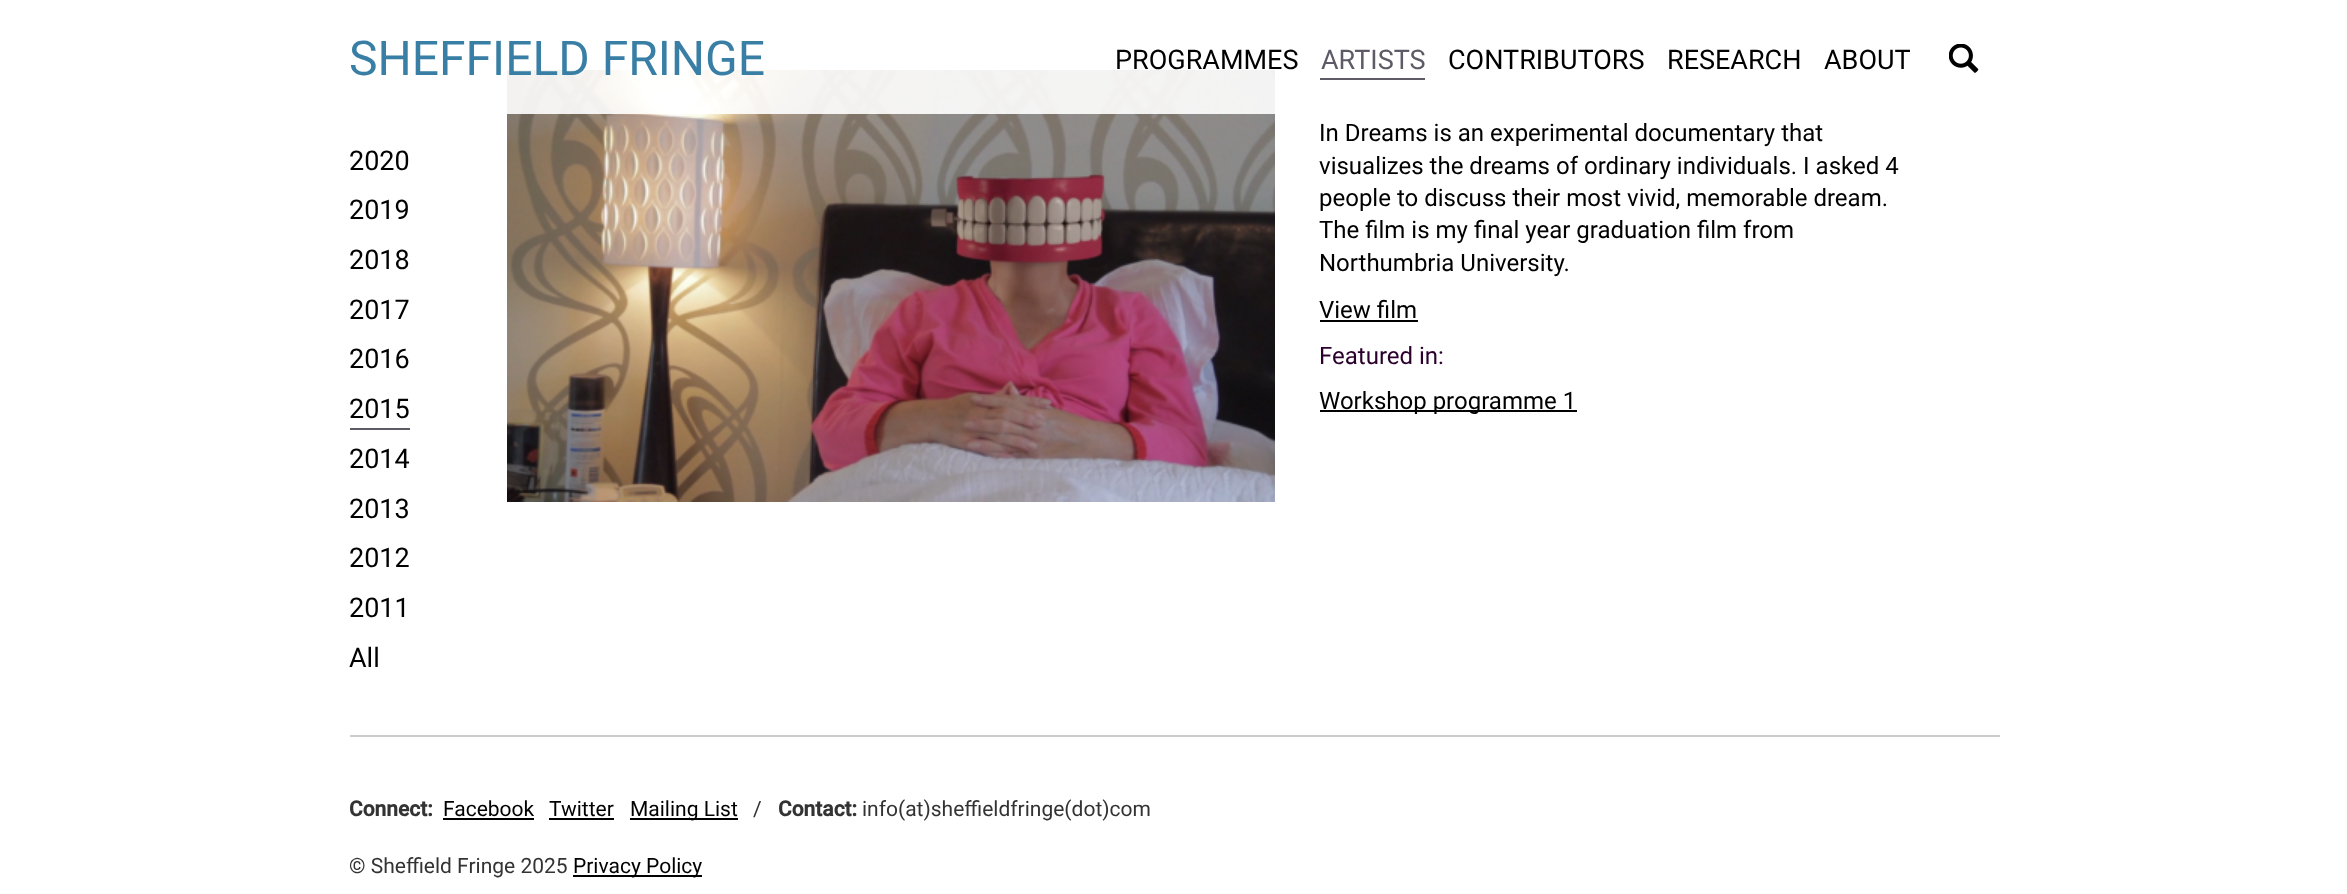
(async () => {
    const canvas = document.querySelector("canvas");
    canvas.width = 2347;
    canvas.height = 894;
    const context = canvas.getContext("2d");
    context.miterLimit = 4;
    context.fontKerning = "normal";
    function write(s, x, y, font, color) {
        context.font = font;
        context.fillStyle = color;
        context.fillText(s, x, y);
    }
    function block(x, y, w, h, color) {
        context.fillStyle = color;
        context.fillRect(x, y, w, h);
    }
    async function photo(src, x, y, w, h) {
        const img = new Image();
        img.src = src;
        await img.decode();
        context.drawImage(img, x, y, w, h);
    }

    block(0, 0, 2347, 894, "rgb(255, 255, 255)");
    await photo("media/2.png", 507, 70, 768, 432);
    block(507, 70, 768, 44, "rgba(255, 255, 255, 0.9)");
    write("SHEFFIELD FRINGE", 349, 75, "48px Roboto", "rgb(57, 127, 165)");
    write("PROGRAMMES", 1115, 69, "27px Roboto", "rgb(0, 0, 0)");
    block(1320, 78, 105, 2, "rgb(94, 91, 102)");
    write("ARTISTS", 1321, 69, "27px Roboto", "rgb(94, 91, 102)");
    write("CONTRIBUTORS", 1448, 69, "27px Roboto", "rgb(0, 0, 0)");
    write("RESEARCH", 1667, 69, "27px Roboto", "rgb(0, 0, 0)");
    write("ABOUT", 1824, 69, "27px Roboto", "rgb(0, 0, 0)");
    await photo("media/1.png", 1949, 44, 30, 29);
    write("2020", 349, 170, "27px Roboto", "rgb(0, 0, 0)");
    write("2019", 349, 219, "27px Roboto", "rgb(0, 0, 0)");
    write("2018", 349, 269, "27px Roboto", "rgb(0, 0, 0)");
    write("2017", 349, 319, "27px Roboto", "rgb(0, 0, 0)");
    write("2016", 349, 368, "27px Roboto", "rgb(0, 0, 0)");
    block(350, 428, 60, 2, "rgb(94, 91, 102)");
    write("2015", 349, 418, "27px Roboto", "rgb(0, 0, 0)");
    write("2014", 349, 468, "27px Roboto", "rgb(0, 0, 0)");
    write("2013", 349, 518, "27px Roboto", "rgb(0, 0, 0)");
    write("2012", 349, 567, "27px Roboto", "rgb(0, 0, 0)");
    write("2011", 349, 617, "27px Roboto", "rgb(0, 0, 0)");
    write("All", 349, 667, "27px Roboto", "rgb(0, 0, 0)");
    write("In Dreams is an experimental documentary that", 1319, 141, "24px Roboto", "rgb(0, 0, 0)");
    write("visualizes the dreams of ordinary individuals. I asked 4", 1319, 174, "24px Roboto", "rgb(0, 0, 0)");
    write("people to discuss their most vivid, memorable dream.", 1319, 206, "24px Roboto", "rgb(0, 0, 0)");
    write("The film is my final year graduation film from", 1319, 238, "24px Roboto", "rgb(0, 0, 0)");
    write("Northumbria University.", 1319, 271, "24px Roboto", "rgb(0, 0, 0)");
    write("View film", 1319, 318, "24px Roboto", "rgb(0, 0, 0)");
    block(1320, 320, 98, 2, "rgb(0, 0, 0)");
    write("Featured in:", 1319, 364, "24px Roboto", "rgb(43, 0, 45)");
    block(1320, 410, 257, 2, "rgb(0, 0, 0)");
    write("Workshop programme 1", 1319, 409, "24px Roboto", "rgb(0, 0, 0)");
    block(350, 735, 1650, 2, "rgb(204, 204, 204)");
    write("Connect:", 349, 816, "bold 21px Roboto", "rgb(51, 51, 51)");
    write("Facebook", 443, 816, "21px Roboto", "rgb(0, 0, 0)");
    block(443, 818, 91, 2, "rgb(0, 0, 0)");
    write("Twitter", 549, 816, "21px Roboto", "rgb(0, 0, 0)");
    block(549, 818, 65, 2, "rgb(0, 0, 0)");
    block(630, 818, 108, 2, "rgb(0, 0, 0)");
    write("Mailing List", 630, 816, "21px Roboto", "rgb(0, 0, 0)");
    write("/", 753, 816, "21px Roboto", "rgb(51, 51, 51)");
    write("Contact:", 778, 816, "bold 21px Roboto", "rgb(51, 51, 51)");
    write("info(at)sheffieldfringe(dot)com", 862, 816, "21px Roboto", "rgb(51, 51, 51)");
    write("© Sheffield Fringe 2025", 349, 873, "21px Roboto", "rgb(51, 51, 51)");
    block(573, 875, 129, 2, "rgb(0, 0, 0)");
    write("Privacy Policy", 573, 873, "21px Roboto", "rgb(0, 0, 0)");
})();
